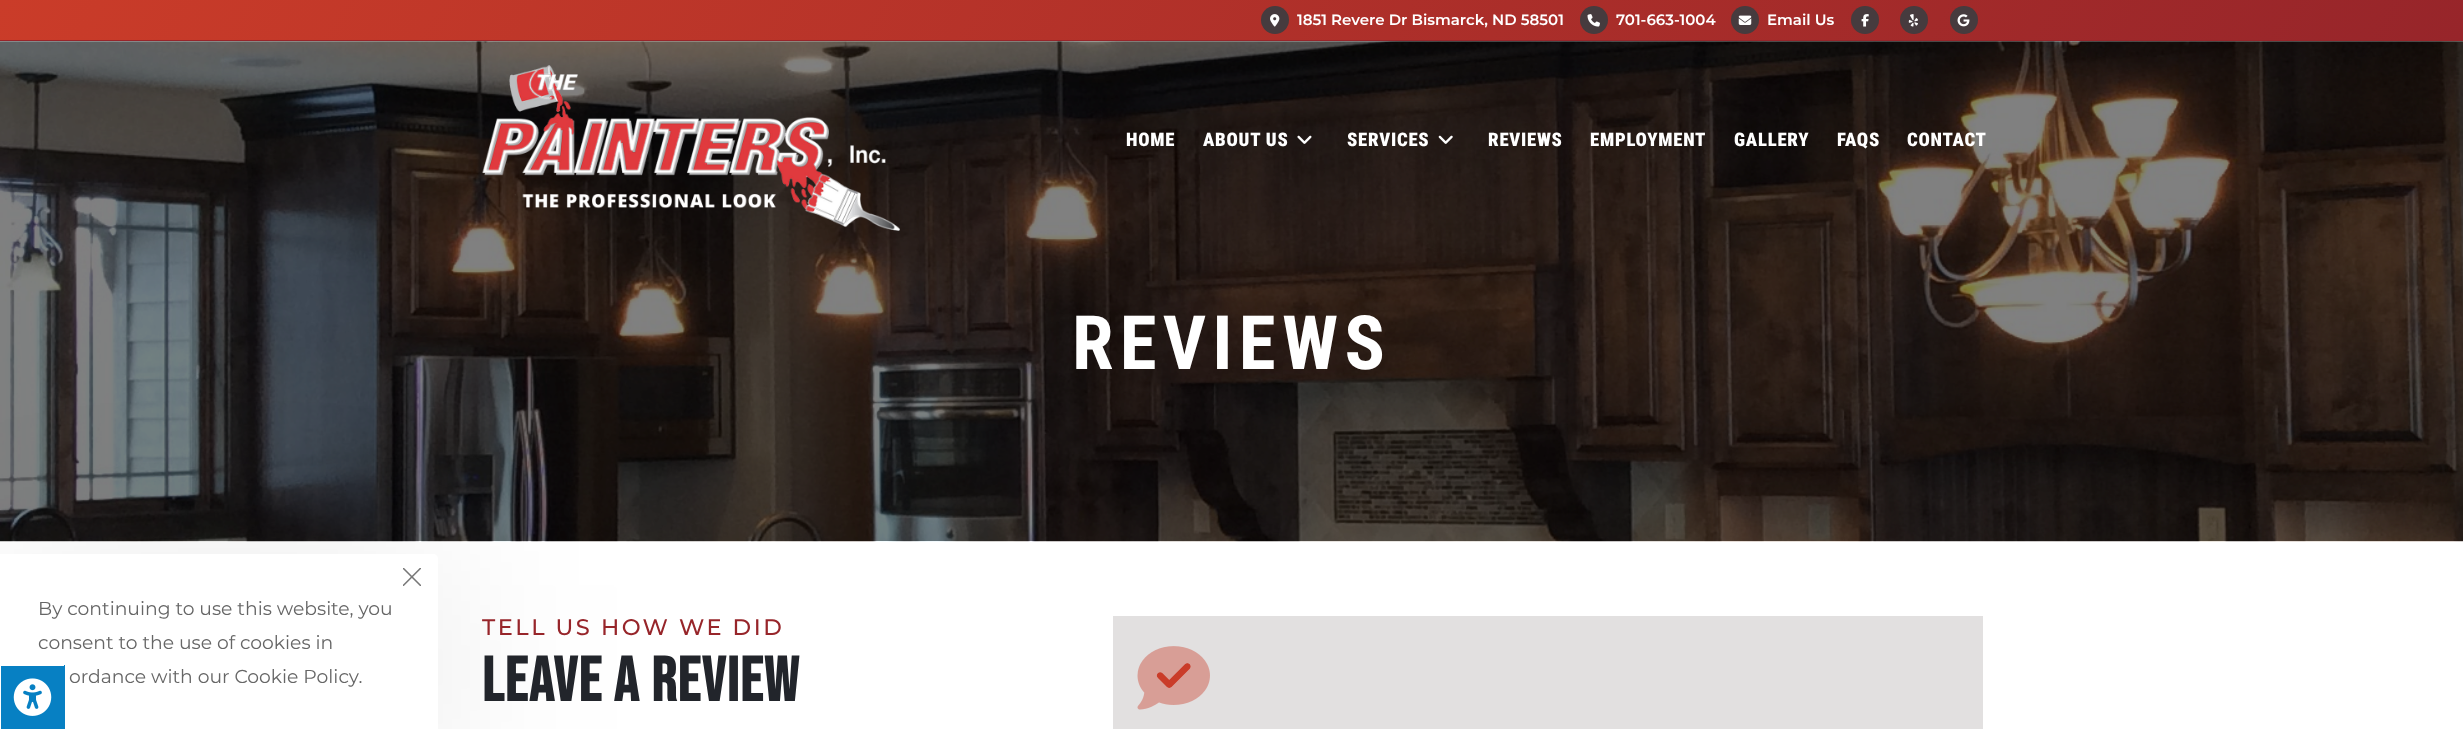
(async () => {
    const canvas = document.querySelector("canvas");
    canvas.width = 2463;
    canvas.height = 729;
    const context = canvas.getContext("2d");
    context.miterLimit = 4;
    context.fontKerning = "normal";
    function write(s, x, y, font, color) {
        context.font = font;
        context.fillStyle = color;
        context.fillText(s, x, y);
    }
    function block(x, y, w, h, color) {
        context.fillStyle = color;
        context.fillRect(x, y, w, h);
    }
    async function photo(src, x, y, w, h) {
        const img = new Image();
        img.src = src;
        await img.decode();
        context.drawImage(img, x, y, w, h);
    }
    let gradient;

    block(0, 0, 2463, 729, "rgb(255, 255, 255)");
    await photo("media/11.png", 0, 41, 2463, 501);
    context.fillStyle = "rgba(0, 0, 0, 0.1)";
    context.filter = "blur(94px)";
    context.beginPath();
    context.roundRect(0, 579, 438, 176, 5);
    context.fill();
    context.filter = "none";
    context.fillStyle = "rgb(255, 255, 255)";
    context.beginPath();
    context.moveTo(0, 554);
    context.lineTo(433, 554);
    context.bezierCurveTo(436, 554, 438, 556, 438, 559);
    context.lineTo(438, 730);
    context.lineTo(0, 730);
    context.closePath();
    context.fill();
    await photo("media/1.png", 403, 568, 18, 18);
    write("By continuing to use this website, you", 38, 615, "18.75px Montserrat", "rgb(102, 102, 102)");
    write("consent to the use of cookies in", 38, 649, "18.75px Montserrat", "rgb(102, 102, 102)");
    write("ordance with our Cookie Policy.", 69, 683, "18.75px Montserrat", "rgb(102, 102, 102)");
    gradient = context.createLinearGradient(299, -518, 2164, 558);
    gradient.addColorStop(0, "rgb(202, 60, 41)");
    gradient.addColorStop(1, "rgb(151, 37, 42)");
    context.fillStyle = gradient;
    context.fillRect(0, 0, 2463, 40);
    block(0, 40, 2463, 1, "rgb(151, 37, 42)");
    context.fillStyle = "rgb(70, 59, 62)";
    context.beginPath();
    context.arc(1275, 20, 14, 0, Math.PI * 2);
    context.fill();
    await photo("media/2.png", 1270, 14, 10, 13);
    write("1851 Revere Dr Bismarck, ND 58501", 1297, 25, "600 15px Montserrat", "rgb(255, 255, 255)");
    context.fillStyle = "rgb(70, 59, 62)";
    context.beginPath();
    context.arc(1594, 20, 14, 0, Math.PI * 2);
    context.fill();
    await photo("media/3.png", 1587, 14, 13, 13);
    write("701-663-1004", 1616, 25, "600 15px Montserrat", "rgb(255, 255, 255)");
    context.fillStyle = "rgb(70, 59, 62)";
    context.beginPath();
    context.arc(1745, 20, 14, 0, Math.PI * 2);
    context.fill();
    await photo("media/4.png", 1738, 15, 14, 10);
    write("Email Us", 1767, 25, "600 15px Montserrat", "rgb(255, 255, 255)");
    context.fillStyle = "rgb(70, 59, 62)";
    context.beginPath();
    context.arc(1865, 20, 14, 0, Math.PI * 2);
    context.fill();
    await photo("media/5.png", 1861, 14, 8, 13);
    context.beginPath();
    context.arc(1914, 20, 14, 0, Math.PI * 2);
    context.fill();
    await photo("media/6.png", 1908, 14, 10, 13);
    context.beginPath();
    context.arc(1964, 20, 14, 0, Math.PI * 2);
    context.fill();
    await photo("media/7.png", 1957, 14, 13, 13);
    await photo("media/8.png", 482, 65, 418, 166);
    context.letterSpacing = "0.75px";
    write("HOME", 1126, 146, "900 18.75px Roboto Condensed", "rgb(255, 255, 255)");
    write("ABOUT US", 1203, 146, "900 18.75px Roboto Condensed", "rgb(255, 255, 255)");
    await photo("media/9.png", 1297, 135, 15, 9);
    write("SERVICES", 1347, 146, "900 18.75px Roboto Condensed", "rgb(255, 255, 255)");
    await photo("media/10.png", 1438, 135, 15, 9);
    write("REVIEWS", 1488, 146, "900 18.75px Roboto Condensed", "rgb(255, 255, 255)");
    write("EMPLOYMENT", 1590, 146, "900 18.75px Roboto Condensed", "rgb(255, 255, 255)");
    write("GALLERY", 1734, 146, "900 18.75px Roboto Condensed", "rgb(255, 255, 255)");
    write("FAQS", 1837, 146, "900 18.75px Roboto Condensed", "rgb(255, 255, 255)");
    write("CONTACT", 1907, 146, "900 18.75px Roboto Condensed", "rgb(255, 255, 255)");
    context.letterSpacing = "6.25px";
    write("REVIEWS", 1072, 369, "bold 75px Roboto Condensed", "rgb(255, 255, 255)");
    context.letterSpacing = "2.5px";
    write("TELL US HOW WE DID", 482, 635, "500 22.5px Montserrat", "rgb(151, 37, 42)");
    context.letterSpacing = "1.25px";
    write("LEAVE A REVIEW", 482, 701, "bold 62.5px Bebas Neue", "rgb(34, 37, 43)");
    block(1113, 616, 870, 113, "rgb(226, 224, 224)");
    await photo("media/13.png", 1156, 663, 35, 25);
    await photo("media/12.png", 1137, 646, 73, 64);
    block(1, 666, 63, 63, "rgb(7, 128, 195)");
    block(64, 665, 1, 64, "rgb(7, 128, 195)");
    await photo("media/14.png", 13, 678, 39, 38);
})();
